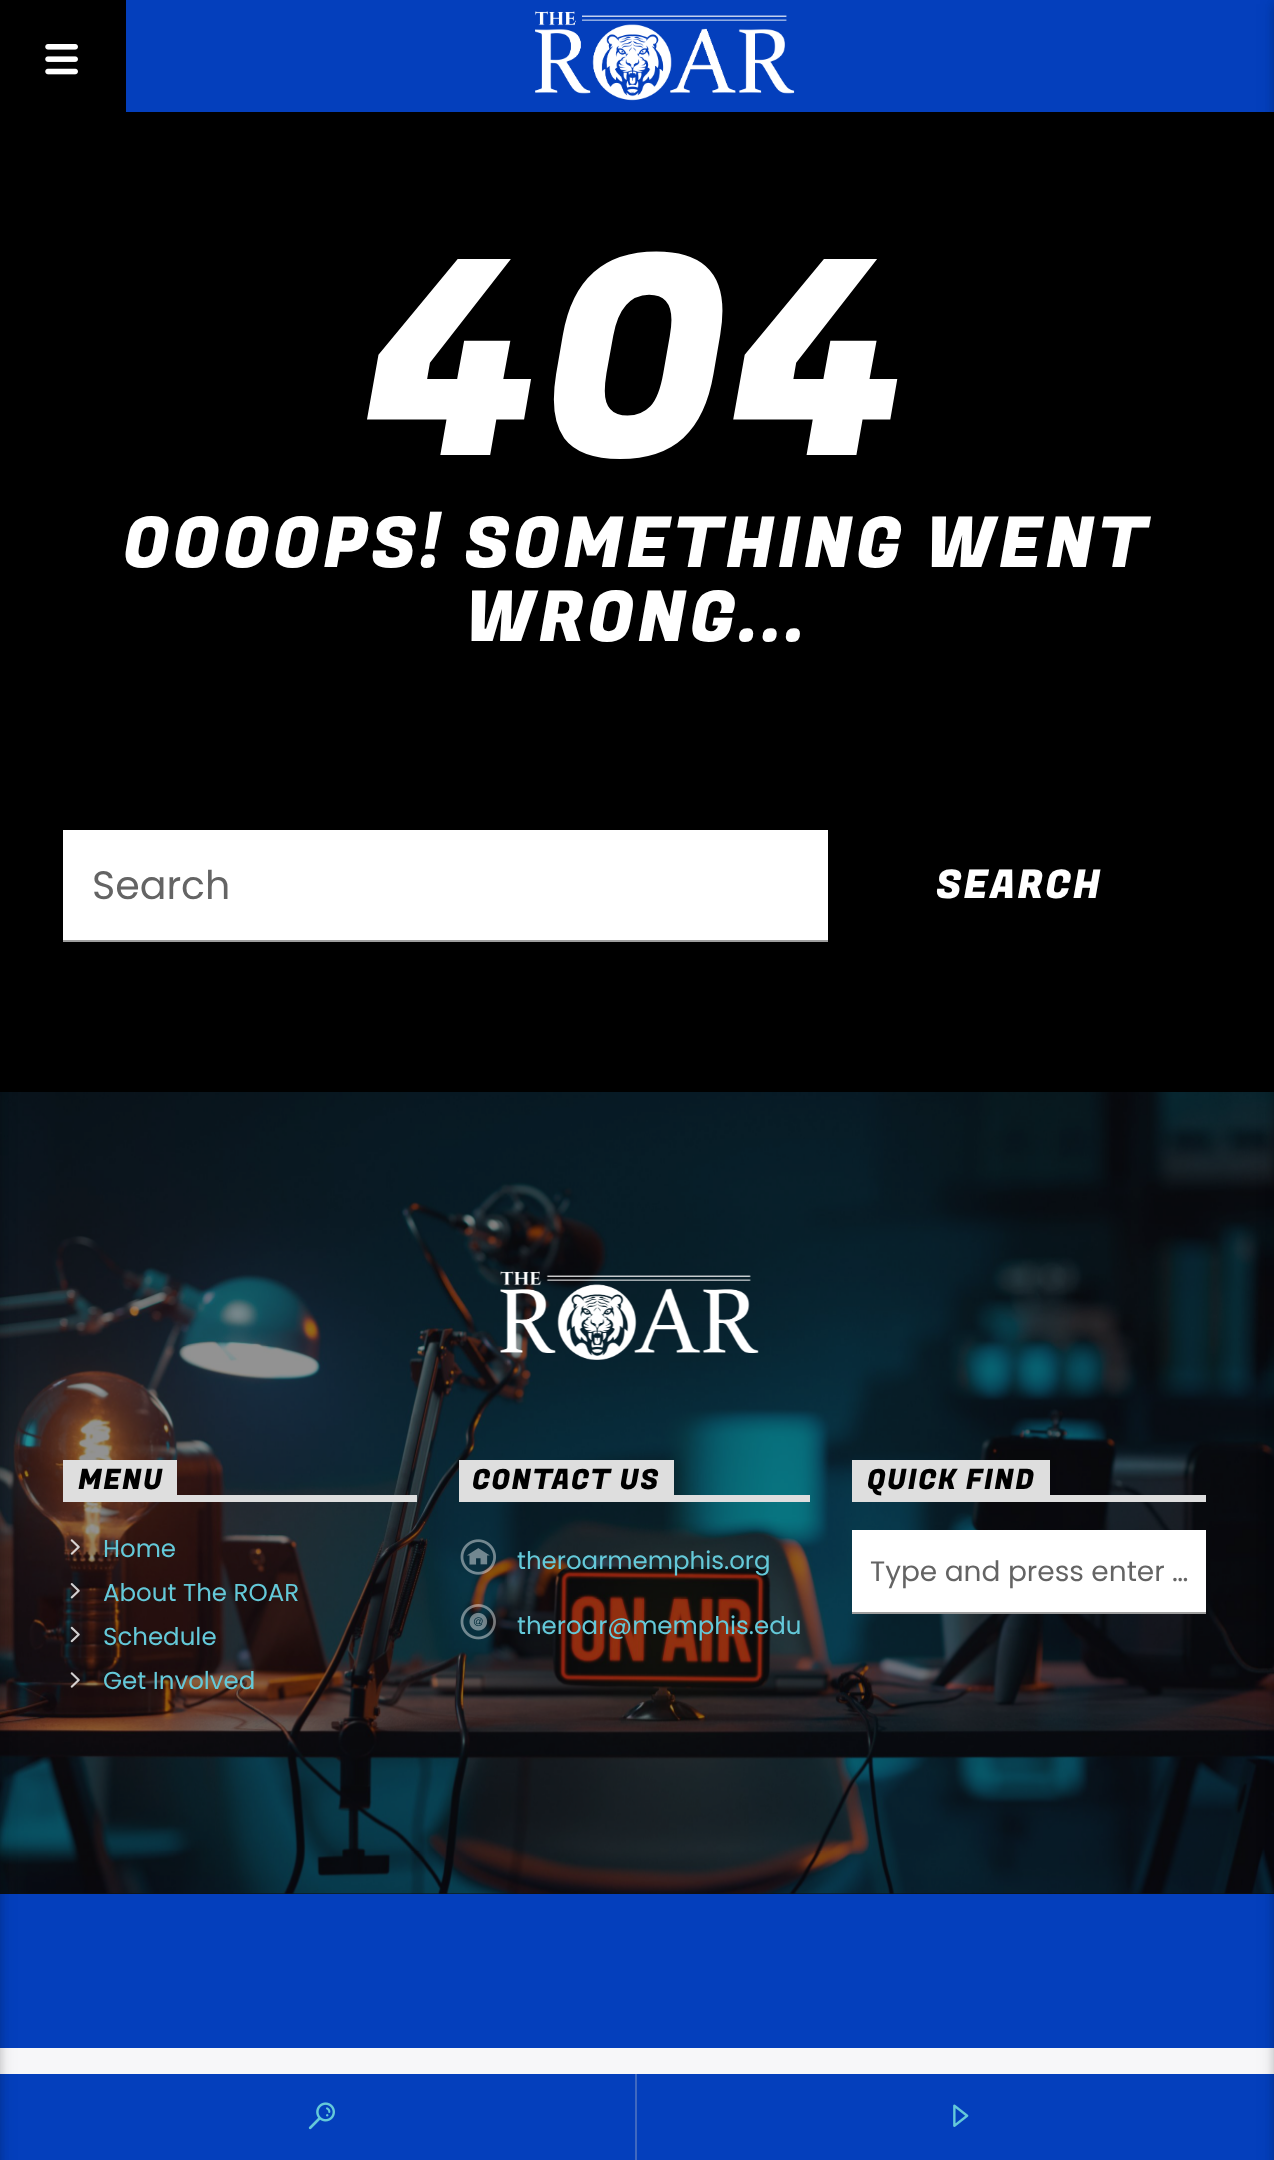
(async () => {
    const canvas = document.querySelector("canvas");
    canvas.width = 1274;
    canvas.height = 2160;
    const context = canvas.getContext("2d");
    context.miterLimit = 4;
    context.fontKerning = "normal";
    function write(s, x, y, font, color) {
        context.font = font;
        context.fillStyle = color;
        context.fillText(s, x, y);
    }
    function block(x, y, w, h, color) {
        context.fillStyle = color;
        context.fillRect(x, y, w, h);
    }
    async function photo(src, x, y, w, h) {
        const img = new Image();
        img.src = src;
        await img.decode();
        context.drawImage(img, x, y, w, h);
    }

    block(0, 0, 1274, 2160, "rgb(247, 247, 249)");
    block(126, 0, 1148, 112, "rgb(4, 63, 188)");
    block(0, 0, 126, 112, "rgb(0, 0, 0)");
    await photo("media/1.png", 45, 44, 33, 31);
    await photo("media/2.png", 535, 11, 260, 90);
    block(0, 112, 1274, 980, "rgb(0, 0, 0)");
    block(0, 1092, 1274, 802, "rgb(16, 16, 16)");
    await photo("media/3.png", 0, 1092, 1274, 802);
    block(0, 1894, 1274, 154, "rgb(4, 63, 188)");
    block(0, 2074, 1274, 86, "rgb(4, 63, 188)");
    context.fillStyle = "rgba(0, 0, 0, 0.12)";
    context.filter = "blur(9px)";
    context.beginPath();
    context.rect(-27, 4, 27, 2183);
    context.fill();
    context.filter = "none";
    context.fillStyle = "rgba(0, 0, 0, 0.16)";
    context.filter = "blur(4.5px)";
    context.beginPath();
    context.rect(-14, 4, 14, 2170);
    context.fill();
    context.filter = "none";
    context.letterSpacing = "3.5px";
    write("404", 365, 455, "280px Fugaz One", "rgb(255, 255, 255)");
    write("OOOOPS! SOMETHING WENT", 123, 567, "70px Fugaz One", "rgb(255, 255, 255)");
    write("WRONG...", 465, 641, "70px Fugaz One", "rgb(255, 255, 255)");
    block(63, 830, 765, 110, "rgb(255, 255, 255)");
    block(63, 940, 765, 2, "rgb(158, 158, 158)");
    context.letterSpacing = "0px";
    write("Search", 92, 899, "39.5px Poppins", "rgb(100, 100, 100)");
    context.letterSpacing = "2px";
    write("SEARCH", 936, 898, "39.5px Fugaz One", "rgb(255, 255, 255)");
    context.fillStyle = "rgba(0, 0, 0, 0.12)";
    context.filter = "blur(9px)";
    context.beginPath();
    context.rect(1274, 4, 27, 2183);
    context.fill();
    context.filter = "none";
    context.fillStyle = "rgba(0, 0, 0, 0.16)";
    context.filter = "blur(4.5px)";
    context.beginPath();
    context.rect(1274, 4, 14, 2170);
    context.fill();
    context.filter = "none";
    await photo("media/4.png", 500, 1271, 259, 89);
    block(177, 1495, 240, 7, "rgb(222, 222, 222)");
    block(63, 1460, 114, 42, "rgb(222, 222, 222)");
    context.letterSpacing = "1.4px";
    write("MENU", 78, 1489, "28px Fugaz One", "rgb(0, 0, 0)");
    await photo("media/5.png", 70, 1539, 10, 16);
    context.letterSpacing = "0px";
    write("Home", 103, 1557, "24.5px Poppins", "rgb(100, 201, 217)");
    await photo("media/6.png", 70, 1583, 10, 16);
    write("About The ROAR", 103, 1601, "24.5px Poppins", "rgb(100, 201, 217)");
    await photo("media/7.png", 70, 1626, 10, 17);
    write("Schedule", 103, 1645, "24.5px Poppins", "rgb(100, 201, 217)");
    await photo("media/8.png", 70, 1672, 10, 16);
    write("Get Involved", 103, 1689, "24.5px Poppins", "rgb(100, 201, 217)");
    block(674, 1495, 136, 7, "rgb(222, 222, 222)");
    block(459, 1460, 215, 42, "rgb(222, 222, 222)");
    context.letterSpacing = "1.4px";
    write("CONTACT US", 472, 1489, "28px Fugaz One", "rgb(0, 0, 0)");
    await photo("media/9.png", 460, 1539, 36, 36);
    context.letterSpacing = "0px";
    write("theroarmemphis.org", 517, 1569, "24.5px Poppins", "rgb(100, 201, 217)");
    await photo("media/10.png", 460, 1604, 36, 36);
    write("theroar@memphis.edu", 517, 1634, "24.5px Poppins", "rgb(100, 201, 217)");
    block(1050, 1495, 156, 7, "rgb(222, 222, 222)");
    block(852, 1460, 198, 42, "rgb(222, 222, 222)");
    context.letterSpacing = "1.4px";
    write("QUICK FIND", 867, 1489, "28px Fugaz One", "rgb(0, 0, 0)");
    block(852, 1530, 354, 82, "rgb(255, 255, 255)");
    block(852, 1612, 354, 2, "rgb(158, 158, 158)");
    context.letterSpacing = "0px";
    write("Type and press enter …", 870, 1581, "28px Poppins", "rgb(100, 100, 100)");
    block(635, 2074, 2, 86, "rgb(63, 104, 192)");
    await photo("media/11.png", 308, 2102, 27, 28);
    await photo("media/12.png", 953, 2104, 16, 23);
})();
